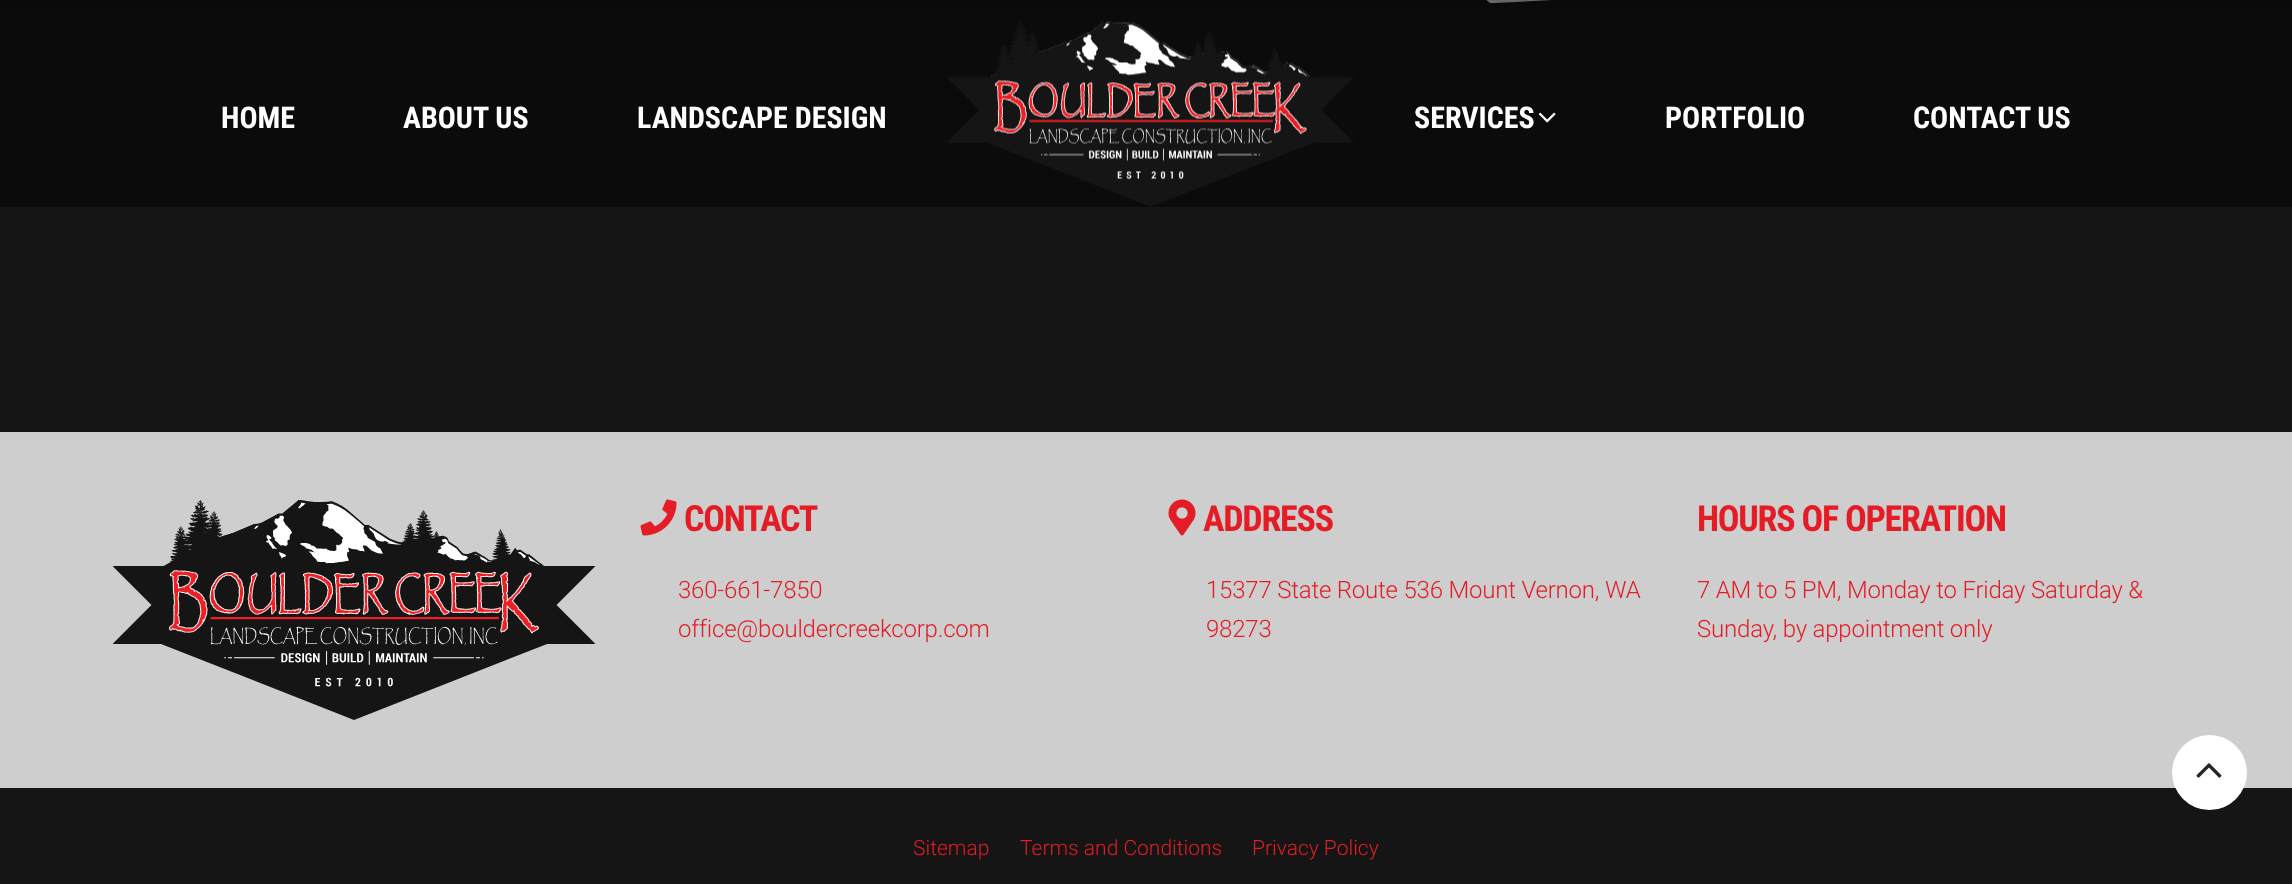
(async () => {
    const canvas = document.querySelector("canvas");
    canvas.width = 2292;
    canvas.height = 884;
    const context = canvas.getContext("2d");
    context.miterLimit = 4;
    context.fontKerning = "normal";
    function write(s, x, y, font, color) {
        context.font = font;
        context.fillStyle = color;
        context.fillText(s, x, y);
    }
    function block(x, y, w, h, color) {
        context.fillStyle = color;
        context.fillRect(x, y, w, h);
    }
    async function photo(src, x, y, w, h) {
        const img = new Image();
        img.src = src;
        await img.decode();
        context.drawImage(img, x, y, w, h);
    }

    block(0, 0, 2292, 884, "rgb(21, 21, 21)");
    block(0, 12, 2292, 195, "rgb(11, 11, 11)");
    block(1486, 0, 66, 4, "rgb(102, 102, 102)");
    await photo("media/1.png", 0, 0, 2292, 12);
    write("HOME", 221, 128, "bold 30px Roboto Condensed", "rgb(255, 255, 255)");
    write("ABOUT US", 403, 128, "bold 30px Roboto Condensed", "rgb(255, 255, 255)");
    write("LANDSCAPE DESIGN", 637, 128, "bold 30px Roboto Condensed", "rgb(255, 255, 255)");
    await photo("media/2.png", 947, 21, 407, 186);
    write("SERVICES", 1414, 128, "bold 30px Roboto Condensed", "rgb(255, 255, 255)");
    await photo("media/3.png", 1538, 112, 18, 11);
    write("PORTFOLIO", 1665, 128, "bold 30px Roboto Condensed", "rgb(255, 255, 255)");
    write("CONTACT US", 1913, 128, "bold 30px Roboto Condensed", "rgb(255, 255, 255)");
    block(0, 432, 2292, 356, "rgb(206, 206, 206)");
    await photo("media/4.png", 113, 500, 483, 220);
    await photo("media/5.png", 640, 499, 37, 37);
    context.letterSpacing = "-1.25px";
    write("CONTACT", 684, 531, "bold 36px Roboto Condensed", "rgb(228, 28, 38)");
    context.letterSpacing = "-0.2px";
    write("360-661-7850", 678, 598, "300 24px Roboto", "rgb(228, 28, 38)");
    write("office@bouldercreekcorp.com", 678, 637, "300 24px Roboto", "rgb(228, 28, 38)");
    await photo("media/6.png", 1168, 499, 28, 37);
    context.letterSpacing = "-1.25px";
    write("ADDRESS", 1203, 531, "bold 36px Roboto Condensed", "rgb(228, 28, 38)");
    context.letterSpacing = "-0.2px";
    write("15377 State Route 536 Mount Vernon, WA", 1206, 598, "300 24px Roboto", "rgb(228, 28, 38)");
    write("98273", 1206, 637, "300 24px Roboto", "rgb(228, 28, 38)");
    context.letterSpacing = "-1.25px";
    write("HOURS OF OPERATION", 1697, 531, "bold 36px Roboto Condensed", "rgb(228, 28, 38)");
    context.letterSpacing = "-0.2px";
    write("7 AM to 5 PM, Monday to Friday Saturday &", 1697, 598, "300 24px Roboto", "rgb(228, 28, 38)");
    write("Sunday, by appointment only", 1697, 637, "300 24px Roboto", "rgb(228, 28, 38)");
    context.letterSpacing = "0px";
    write("Sitemap", 913, 855, "300 21px Roboto", "rgb(228, 28, 38)");
    write("Terms and Conditions", 1020, 855, "300 21px Roboto", "rgb(228, 28, 38)");
    write("Privacy Policy", 1252, 855, "300 21px Roboto", "rgb(228, 28, 38)");
    context.fillStyle = "rgb(255, 255, 255)";
    context.beginPath();
    context.arc(2209.5, 772.5, 37.5, 0, Math.PI * 2);
    context.fill();
    await photo("media/7.png", 2196, 763, 26, 15);
})();
